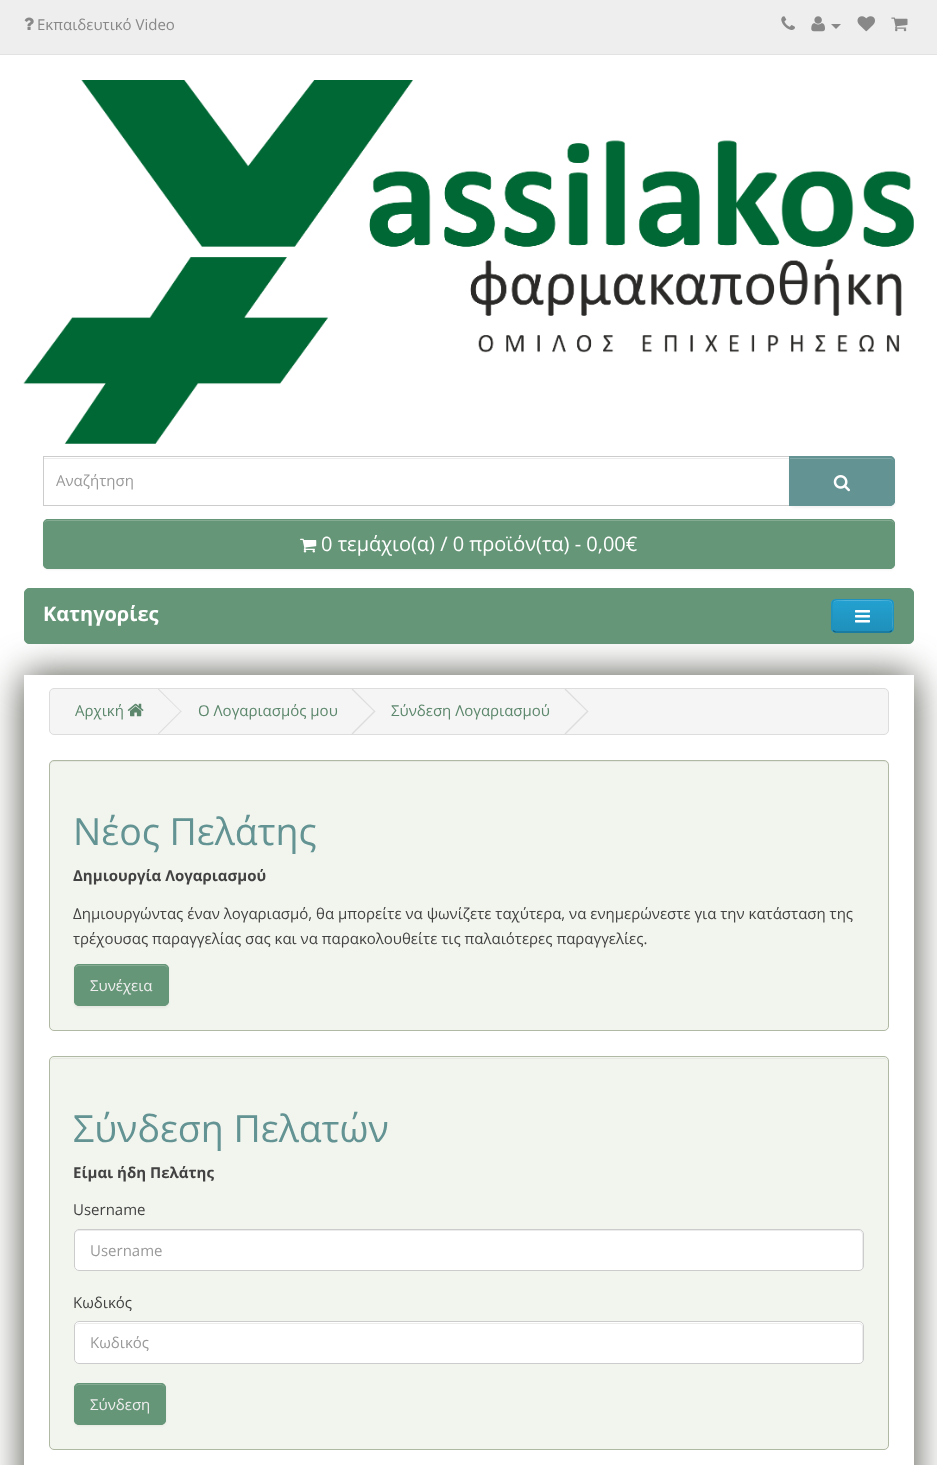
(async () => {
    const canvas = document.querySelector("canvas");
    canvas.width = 937;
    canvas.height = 1465;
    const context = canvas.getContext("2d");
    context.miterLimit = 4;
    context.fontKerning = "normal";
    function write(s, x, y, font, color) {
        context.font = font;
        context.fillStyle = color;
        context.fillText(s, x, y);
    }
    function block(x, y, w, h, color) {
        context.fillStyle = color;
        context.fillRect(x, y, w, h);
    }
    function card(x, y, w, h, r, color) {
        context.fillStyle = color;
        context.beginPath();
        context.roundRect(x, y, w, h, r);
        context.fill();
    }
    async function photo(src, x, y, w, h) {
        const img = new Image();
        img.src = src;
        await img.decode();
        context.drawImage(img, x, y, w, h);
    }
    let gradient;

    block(0, 0, 937, 1465, "rgb(255, 255, 255)");
    block(0, 0, 937, 54, "rgb(238, 238, 238)");
    block(0, 54, 937, 1, "rgb(226, 226, 226)");
    await photo("media/1.png", 24, 17, 10, 13);
    write("Εκπαιδευτικό Video", 37, 30, "15px Open Sans", "rgb(136, 136, 136)");
    await photo("media/2.png", 781, 16, 14, 14);
    await photo("media/3.png", 811, 16, 14, 16);
    context.beginPath();
    context.moveTo(831, 24);
    context.lineTo(841, 24);
    context.lineTo(836, 29);
    context.closePath();
    context.fill();
    await photo("media/4.png", 857, 16, 18, 16);
    await photo("media/5.png", 891, 17, 17, 15);
    await photo("media/6.png", 23, 80, 891, 364);
    block(44, 458, 745, 1, "rgb(236, 236, 236)");
    context.strokeStyle = "rgb(204, 204, 204)";
    context.strokeRect(43.5, 456.5, 746, 49);
    write("Αναζήτηση", 56, 486, "15px Open Sans", "rgb(153, 153, 153)");
    context.fillStyle = "rgba(0, 0, 0, 0.05)";
    context.filter = "blur(1px)";
    context.beginPath();
    context.roundRect(789, 458, 106, 50, 5);
    context.fill();
    context.filter = "none";
    context.fillStyle = "rgb(99, 147, 147)";
    context.beginPath();
    context.roundRect(789, 456, 106, 50, [0, 5, 5, 0]);
    context.fill();
    context.fillStyle = "rgb(130, 169, 169)";
    context.beginPath();
    context.moveTo(790, 459);
    context.lineTo(890, 459);
    context.bezierCurveTo(892, 459, 894, 460, 894, 462);
    context.bezierCurveTo(894, 460, 892, 458, 890, 458);
    context.lineTo(790, 458);
    context.closePath();
    context.fill();
    context.beginPath();
    context.roundRect(789.5, 456.5, 105, 49, [0, 4.5, 4.5, 0]);
    context.strokeStyle = "rgb(99, 147, 147)";
    context.stroke();
    await photo("media/7.png", 833, 475, 17, 17);
    context.fillStyle = "rgba(0, 0, 0, 0.05)";
    context.filter = "blur(1px)";
    context.beginPath();
    context.roundRect(43, 520, 852, 50, 5);
    context.fill();
    context.filter = "none";
    card(43, 519, 852, 50, 5, "rgb(102, 150, 120)");
    context.fillStyle = "rgb(133, 171, 147)";
    context.beginPath();
    context.moveTo(48, 521);
    context.lineTo(890, 521);
    context.bezierCurveTo(892, 521, 894, 523, 894, 525);
    context.bezierCurveTo(894, 522, 893, 520, 890, 520);
    context.lineTo(48, 520);
    context.bezierCurveTo(45, 520, 44, 522, 44, 525);
    context.bezierCurveTo(44, 523, 45, 521, 48, 521);
    context.closePath();
    context.fill();
    context.beginPath();
    context.roundRect(43.5, 519.5, 851, 49, 4.5);
    context.strokeStyle = "rgb(102, 150, 120)";
    context.stroke();
    await photo("media/8.png", 300, 538, 17, 15);
    write("0 τεμάχιο(α) / 0 προϊόν(τα) - 0,00€", 321, 551, "20px Open Sans", "rgb(255, 255, 255)");
    context.fillStyle = "rgba(66, 70, 59, 0.95)";
    context.filter = "blur(19px)";
    context.beginPath();
    context.rect(24, 675, 890, 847);
    context.fill();
    context.filter = "none";
    context.fillStyle = "rgb(102, 150, 120)";
    context.beginPath();
    context.roundRect(24.5, 588.5, 889, 55, 4.5);
    context.fill();
    context.stroke();
    write("Κατηγορίες", 43, 621, "bold 20px Open Sans", "rgb(255, 255, 255)");
    card(831, 599, 63, 34, 5, "rgb(34, 154, 200)");
    context.save();
    context.beginPath();
    context.roundRect(831, 599, 63, 34, 5);
    context.clip();
    gradient = context.createLinearGradient(863, 600, 863, 631);
    gradient.addColorStop(0, "rgb(35, 161, 209)");
    gradient.addColorStop(1, "rgb(31, 144, 187)");
    context.fillStyle = gradient;
    context.fillRect(831, 600, 63, 31);
    context.restore();
    context.fillStyle = "rgba(255, 255, 255, 0.2)";
    context.beginPath();
    context.moveTo(836, 601);
    context.lineTo(880, 601);
    context.bezierCurveTo(894, 601, 892, 600, 892, 613);
    context.lineTo(892, 630);
    context.bezierCurveTo(893, 629, 893, 628, 893, 627);
    context.lineTo(893, 604);
    context.bezierCurveTo(893, 602, 891, 600, 889, 600);
    context.lineTo(837, 600);
    context.bezierCurveTo(836, 600, 834, 601, 834, 602);
    context.closePath();
    context.fill();
    context.beginPath();
    context.moveTo(892, 630.5);
    context.bezierCurveTo(891, 631.5, 890, 632, 889, 632);
    context.lineTo(836, 632);
    context.bezierCurveTo(835, 632, 834, 631.5, 833, 630.5);
    context.strokeStyle = "rgb(20, 94, 122)";
    context.lineWidth = 1.2;
    context.stroke();
    context.beginPath();
    context.moveTo(833, 630.5);
    context.bezierCurveTo(830.5, 628, 832, 619, 832, 615.5);
    context.bezierCurveTo(832, 599.5, 829, 599.5, 845, 599.5);
    context.lineTo(880, 599.5);
    context.bezierCurveTo(896, 599.5, 893, 599.5, 893, 615.5);
    context.bezierCurveTo(893, 619, 894.5, 628, 892, 630.5);
    context.strokeStyle = "rgb(31, 144, 187)";
    context.stroke();
    await photo("media/9.png", 855, 610, 15, 13);
    block(24, 675, 890, 790, "rgb(255, 255, 255)");
    context.fillStyle = "rgb(245, 245, 245)";
    context.beginPath();
    context.roundRect(49.5, 688.5, 839, 46, 4.5);
    context.fill();
    context.strokeStyle = "rgb(221, 221, 221)";
    context.lineWidth = 1;
    context.stroke();
    write("Αρχική", 75, 716, "15px Open Sans", "rgb(92, 135, 108)");
    await photo("media/10.png", 127, 703, 17, 14);
    context.fillStyle = "rgb(221, 221, 221)";
    context.beginPath();
    context.moveTo(158, 689.5);
    context.lineTo(158.5, 688.5);
    context.lineTo(181.5, 711.5);
    context.lineTo(181, 712);
    context.closePath();
    context.fill();
    context.beginPath();
    context.moveTo(158, 733.5);
    context.lineTo(181, 710.5);
    context.lineTo(181.5, 711.5);
    context.lineTo(158.5, 734.5);
    context.closePath();
    context.fill();
    write("O Λογαριασμός μου", 198, 716, "15px Open Sans", "rgb(92, 135, 108)");
    context.fillStyle = "rgb(221, 221, 221)";
    context.beginPath();
    context.moveTo(351.5, 689.5);
    context.lineTo(352.5, 688.5);
    context.lineTo(375.5, 711.5);
    context.lineTo(374.5, 712);
    context.closePath();
    context.fill();
    context.beginPath();
    context.moveTo(351.5, 733.5);
    context.lineTo(374.5, 710.5);
    context.lineTo(375.5, 711.5);
    context.lineTo(352.5, 734.5);
    context.closePath();
    context.fill();
    write("Σύνδεση Λογαριασμού", 391, 716, "15px Open Sans", "rgb(92, 135, 108)");
    context.fillStyle = "rgb(221, 221, 221)";
    context.beginPath();
    context.moveTo(564.5, 689.5);
    context.lineTo(565.5, 688.5);
    context.lineTo(588.5, 711.5);
    context.lineTo(587.5, 712);
    context.closePath();
    context.fill();
    context.beginPath();
    context.moveTo(564.5, 733.5);
    context.lineTo(587.5, 710.5);
    context.lineTo(588.5, 711.5);
    context.lineTo(565.5, 734.5);
    context.closePath();
    context.fill();
    card(49, 760, 840, 271, 5, "rgb(242, 245, 238)");
    context.fillStyle = "rgb(230, 233, 226)";
    context.beginPath();
    context.moveTo(54, 762);
    context.lineTo(884, 762);
    context.bezierCurveTo(886, 762, 888, 764, 888, 766);
    context.bezierCurveTo(888, 763, 887, 761, 884, 761);
    context.lineTo(54, 761);
    context.bezierCurveTo(51, 761, 50, 763, 50, 766);
    context.bezierCurveTo(50, 764, 52, 762, 54, 762);
    context.closePath();
    context.fill();
    context.beginPath();
    context.roundRect(49.5, 760.5, 839, 270, 4.5);
    context.strokeStyle = "rgb(176, 185, 164)";
    context.stroke();
    write("Νέος Πελάτης", 73, 845, "37.5px Open Sans", "rgb(99, 147, 147)");
    write("Δημιουργία Λογαριασμού", 73, 881, "bold 15px Open Sans", "rgb(66, 66, 66)");
    write("Δημιουργώντας έναν λογαριασμό, θα μπορείτε να ψωνίζετε ταχύτερα, να ενημερώνεστε για την κατάσταση της", 73, 919, "15px Open Sans", "rgb(66, 66, 66)");
    write("τρέχουσας παραγγελίας σας και να παρακολουθείτε τις παλαιότερες παραγγελίες.", 73, 944, "15px Open Sans", "rgb(66, 66, 66)");
    context.fillStyle = "rgba(0, 0, 0, 0.05)";
    context.filter = "blur(1px)";
    context.beginPath();
    context.roundRect(74, 965, 95, 43, 5);
    context.fill();
    context.filter = "none";
    card(74, 964, 95, 42, 5, "rgb(102, 150, 120)");
    context.fillStyle = "rgb(133, 171, 147)";
    context.beginPath();
    context.moveTo(79, 966);
    context.lineTo(164, 966);
    context.bezierCurveTo(166, 966, 168, 968, 168, 970);
    context.bezierCurveTo(168, 961, 154, 965, 150, 965);
    context.lineTo(93, 965);
    context.bezierCurveTo(89, 965, 75, 961, 75, 970);
    context.bezierCurveTo(75, 968, 77, 966, 79, 966);
    context.closePath();
    context.fill();
    context.beginPath();
    context.roundRect(74.5, 964.5, 94, 41, 4.5);
    context.strokeStyle = "rgb(102, 150, 120)";
    context.stroke();
    write("Συνέχεια", 90, 991, "15px Open Sans", "rgb(238, 238, 238)");
    card(49, 1056, 840, 394, 5, "rgb(242, 245, 238)");
    context.fillStyle = "rgb(230, 233, 226)";
    context.beginPath();
    context.moveTo(54, 1059);
    context.lineTo(884, 1059);
    context.bezierCurveTo(886, 1059, 888, 1060, 888, 1062);
    context.bezierCurveTo(888, 1060, 886, 1058, 884, 1058);
    context.lineTo(54, 1058);
    context.bezierCurveTo(52, 1058, 50, 1060, 50, 1062);
    context.bezierCurveTo(50, 1060, 52, 1059, 54, 1059);
    context.closePath();
    context.fill();
    context.beginPath();
    context.roundRect(49.5, 1056.5, 839, 393, 4.5);
    context.strokeStyle = "rgb(176, 185, 164)";
    context.stroke();
    write("Σύνδεση Πελατών", 73, 1142, "37.5px Open Sans", "rgb(99, 147, 147)");
    write("Είμαι ήδη Πελάτης", 73, 1178, "bold 15px Open Sans", "rgb(66, 66, 66)");
    write("Username", 73, 1215, "15px Open Sans", "rgb(66, 66, 66)");
    card(74, 1229, 790, 42, 5, "rgb(255, 255, 255)");
    context.fillStyle = "rgb(236, 236, 236)";
    context.beginPath();
    context.moveTo(79, 1231);
    context.lineTo(859, 1231);
    context.bezierCurveTo(861, 1231, 862, 1233, 862, 1235);
    context.lineTo(862, 1269);
    context.bezierCurveTo(863, 1268, 863, 1267, 863, 1266);
    context.lineTo(863, 1234);
    context.bezierCurveTo(863, 1232, 861, 1230, 859, 1230);
    context.lineTo(79, 1230);
    context.bezierCurveTo(77, 1230, 75, 1232, 75, 1234);
    context.lineTo(75, 1235);
    context.bezierCurveTo(75, 1233, 77, 1231, 79, 1231);
    context.closePath();
    context.fill();
    context.beginPath();
    context.roundRect(74.5, 1229.5, 789, 41, 4.5);
    context.strokeStyle = "rgb(204, 204, 204)";
    context.stroke();
    write("Username", 90, 1256, "15px Open Sans", "rgb(153, 153, 153)");
    write("Κωδικός", 73, 1308, "15px Open Sans", "rgb(66, 66, 66)");
    card(74, 1321, 790, 43, 5, "rgb(255, 255, 255)");
    context.fillStyle = "rgb(236, 236, 236)";
    context.beginPath();
    context.moveTo(79, 1324);
    context.lineTo(859, 1324);
    context.bezierCurveTo(861, 1324, 862, 1325, 862, 1328);
    context.lineTo(862, 1362);
    context.bezierCurveTo(862, 1361, 863, 1360, 863, 1359);
    context.lineTo(863, 1327);
    context.bezierCurveTo(863, 1325, 861, 1323, 859, 1323);
    context.lineTo(79, 1323);
    context.bezierCurveTo(77, 1323, 75, 1325, 75, 1327);
    context.lineTo(75, 1328);
    context.bezierCurveTo(75, 1325, 77, 1324, 79, 1324);
    context.closePath();
    context.fill();
    context.beginPath();
    context.roundRect(74.5, 1321.5, 789, 42, 4.5);
    context.stroke();
    write("Κωδικός", 90, 1348, "15px Open Sans", "rgb(153, 153, 153)");
    context.fillStyle = "rgba(0, 0, 0, 0.05)";
    context.filter = "blur(1px)";
    context.beginPath();
    context.roundRect(74, 1384, 92, 42, 5);
    context.fill();
    context.filter = "none";
    card(74, 1383, 92, 42, 5, "rgb(102, 150, 120)");
    context.fillStyle = "rgb(133, 171, 147)";
    context.beginPath();
    context.moveTo(79, 1385);
    context.lineTo(161, 1385);
    context.bezierCurveTo(163, 1385, 165, 1387, 165, 1389);
    context.bezierCurveTo(165, 1381, 152, 1384, 147, 1384);
    context.lineTo(93, 1384);
    context.bezierCurveTo(88, 1384, 75, 1381, 75, 1389);
    context.bezierCurveTo(75, 1387, 77, 1385, 79, 1385);
    context.closePath();
    context.fill();
    context.beginPath();
    context.roundRect(74.5, 1383.5, 91, 41, 4.5);
    context.strokeStyle = "rgb(102, 150, 120)";
    context.stroke();
    write("Σύνδεση", 90, 1410, "15px Open Sans", "rgb(238, 238, 238)");
})();
